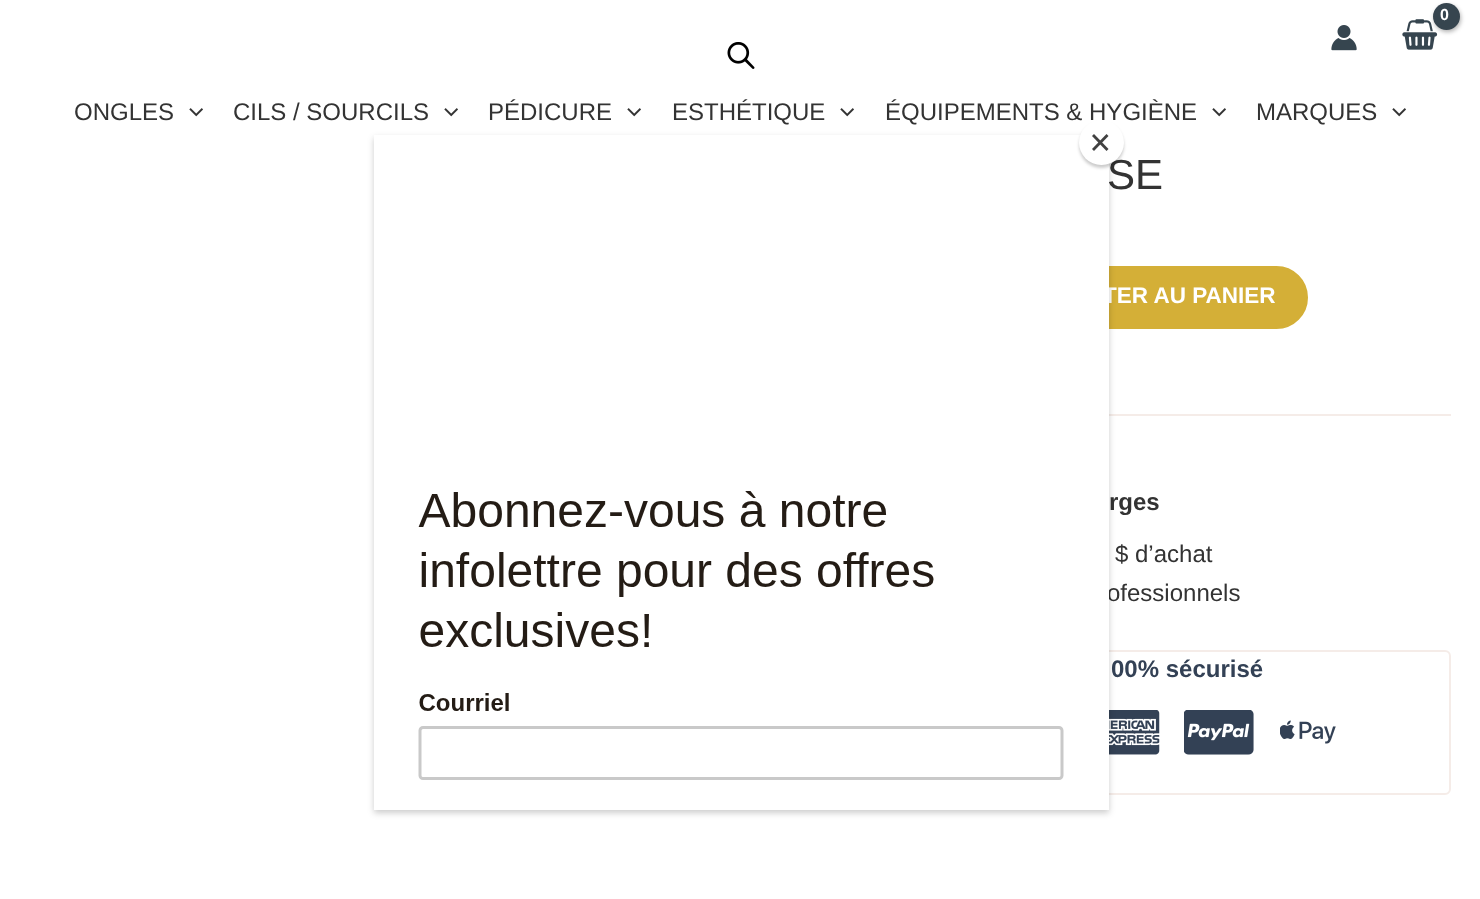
(async () => {
    const canvas = document.querySelector("canvas");
    canvas.width = 1480;
    canvas.height = 899;
    const context = canvas.getContext("2d");
    context.miterLimit = 4;
    context.fontKerning = "normal";
    function write(s, x, y, font, color) {
        context.font = font;
        context.fillStyle = color;
        context.fillText(s, x, y);
    }
    function block(x, y, w, h, color) {
        context.fillStyle = color;
        context.fillRect(x, y, w, h);
    }
    async function photo(src, x, y, w, h) {
        const img = new Image();
        img.src = src;
        await img.decode();
        context.drawImage(img, x, y, w, h);
    }

    block(0, 0, 1480, 899, "rgb(255, 255, 255)");
    await photo("media/1.png", 1402, 19, 36, 31);
    context.fillStyle = "rgba(0, 0, 0, 0.3)";
    context.filter = "blur(2px)";
    context.beginPath();
    context.roundRect(1434, 5, 27, 27, 13.5);
    context.fill();
    context.filter = "none";
    context.fillStyle = "rgb(54, 69, 79)";
    context.beginPath();
    context.arc(1446.5, 16.5, 13.5, 0, Math.PI * 2);
    context.fill();
    context.letterSpacing = "-1px";
    write("0", 1440, 20, "bold 16px Liberation Sans", "rgb(255, 255, 255)");
    await photo("media/2.png", 1331, 25, 26, 26);
    await photo("media/3.png", 727, 42, 28, 27);
    context.letterSpacing = "0px";
    write("ONGLES", 74, 120, "24px Liberation Sans", "rgb(51, 51, 51)");
    await photo("media/4.png", 189, 108, 14, 9);
    write("CILS / SOURCILS", 233, 120, "24px Liberation Sans", "rgb(51, 51, 51)");
    await photo("media/4.png", 444, 108, 14, 9);
    write("PÉDICURE", 488, 120, "24px Liberation Sans", "rgb(51, 51, 51)");
    await photo("media/4.png", 627, 108, 14, 9);
    write("ESTHÉTIQUE", 672, 120, "24px Liberation Sans", "rgb(51, 51, 51)");
    await photo("media/4.png", 840, 108, 14, 9);
    write("ÉQUIPEMENTS & HYGIÈNE", 885, 120, "24px Liberation Sans", "rgb(51, 51, 51)");
    await photo("media/4.png", 1212, 108, 14, 9);
    write("MARQUES", 1256, 120, "24px Liberation Sans", "rgb(51, 51, 51)");
    await photo("media/4.png", 1392, 108, 14, 9);
    write("SE", 1107, 189, "42px Liberation Sans", "rgb(51, 51, 51)");
    context.fillStyle = "rgb(212, 175, 55)";
    context.beginPath();
    context.roundRect(1008.5, 267.5, 298, 60, 30);
    context.fill();
    context.strokeStyle = "rgb(212, 175, 55)";
    context.lineWidth = 3;
    context.stroke();
    write("TER AU PANIER", 1103, 303, "bold 22.5px Liberation Sans", "rgb(255, 255, 255)");
    block(1109, 414, 342, 2, "rgb(245, 236, 232)");
    write("rges", 1109, 510, "bold 24px Liberation Sans", "rgb(51, 51, 51)");
    write("$ d’achat", 1115, 562, "24px Liberation Sans", "rgb(51, 51, 51)");
    write("ofessionnels", 1107, 601, "24px Liberation Sans", "rgb(51, 51, 51)");
    context.beginPath();
    context.roundRect(798, 651, 652, 143, 5);
    context.strokeStyle = "rgb(245, 236, 232)";
    context.lineWidth = 2;
    context.stroke();
    write("00% sécurisé", 1111, 677, "bold 24px Liberation Sans", "rgb(51, 65, 85)");
    await photo("media/5.png", 1109, 710, 51, 45);
    await photo("media/6.png", 1184, 710, 70, 45);
    await photo("media/7.png", 1280, 720, 56, 24);
    context.save();
    context.beginPath();
    context.moveTo(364, 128);
    context.lineTo(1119, 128);
    context.lineTo(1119, 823);
    context.lineTo(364, 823);
    context.closePath();
    context.moveTo(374, 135);
    context.lineTo(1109, 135);
    context.lineTo(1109, 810);
    context.lineTo(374, 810);
    context.closePath();
    context.clip("evenodd");
    context.fillStyle = "rgba(0, 0, 0, 0.2)";
    context.filter = "blur(3px)";
    context.beginPath();
    context.rect(374, 138, 735, 675);
    context.fill();
    context.filter = "none";
    context.restore();
    await photo("media/8.png", 418, 136, 691, 674);
    context.fillStyle = "rgba(0, 0, 0, 0.2)";
    context.filter = "blur(1.5px)";
    context.beginPath();
    context.roundRect(1079, 123, 45, 45, 22.5);
    context.fill();
    context.filter = "none";
    context.fillStyle = "rgb(255, 255, 255)";
    context.beginPath();
    context.arc(1101.5, 142.5, 22.5, 0, Math.PI * 2);
    context.fill();
    context.fillStyle = "rgb(65, 65, 65)";
    context.beginPath();
    context.moveTo(1106.5, 134);
    context.lineTo(1108.5, 136);
    context.lineTo(1094, 151);
    context.lineTo(1092, 149);
    context.closePath();
    context.fill();
    context.beginPath();
    context.moveTo(1092, 136);
    context.lineTo(1094, 134);
    context.lineTo(1108.5, 149);
    context.lineTo(1106.5, 151);
    context.closePath();
    context.fill();
})();
